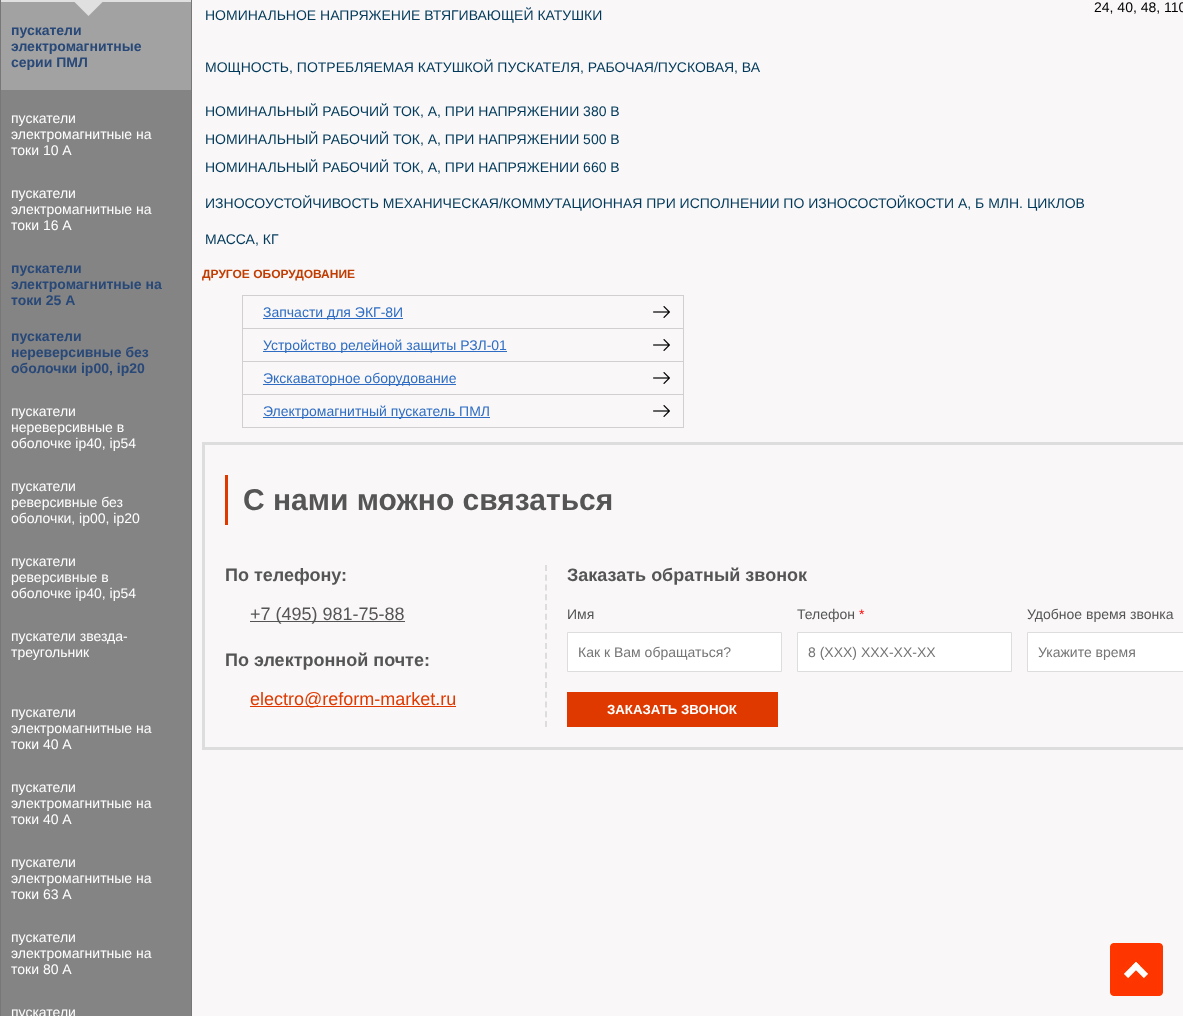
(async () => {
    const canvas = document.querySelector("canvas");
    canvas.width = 1183;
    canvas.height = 1016;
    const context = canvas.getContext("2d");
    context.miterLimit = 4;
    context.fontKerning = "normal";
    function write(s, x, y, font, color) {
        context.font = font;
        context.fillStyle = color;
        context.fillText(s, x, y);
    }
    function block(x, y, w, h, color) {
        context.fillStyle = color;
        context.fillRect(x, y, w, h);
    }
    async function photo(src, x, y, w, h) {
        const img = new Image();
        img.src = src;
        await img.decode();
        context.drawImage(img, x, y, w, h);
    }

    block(0, 0, 1183, 1016, "rgb(249, 247, 247)");
    block(1, 0, 190, 2, "rgb(224, 224, 224)");
    context.strokeStyle = "rgb(119, 119, 119)";
    context.strokeRect(0.5, -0.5, 191, 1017);
    block(1, 2, 190, 88, "rgb(162, 162, 162)");
    context.fillStyle = "rgb(224, 224, 224)";
    context.beginPath();
    context.moveTo(88.5, -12);
    context.lineTo(102.5, 2);
    context.lineTo(88.5, 16);
    context.lineTo(74.5, 2);
    context.closePath();
    context.fill();
    write("пускатели", 11, 35, "bold 14px Liberation Sans", "rgb(40, 72, 120)");
    write("электромагнитные", 11, 51, "bold 14px Liberation Sans", "rgb(40, 72, 120)");
    write("серии ПМЛ", 11, 67, "bold 14px Liberation Sans", "rgb(40, 72, 120)");
    block(1, 90, 190, 926, "rgb(132, 132, 132)");
    write("пускатели", 11, 123, "14px Liberation Sans", "rgb(255, 255, 255)");
    write("электромагнитные на", 11, 139, "14px Liberation Sans", "rgb(255, 255, 255)");
    write("токи 10 A", 11, 155, "14px Liberation Sans", "rgb(255, 255, 255)");
    write("пускатели", 11, 198, "14px Liberation Sans", "rgb(255, 255, 255)");
    write("электромагнитные на", 11, 214, "14px Liberation Sans", "rgb(255, 255, 255)");
    write("токи 16 A", 11, 230, "14px Liberation Sans", "rgb(255, 255, 255)");
    write("пускатели", 11, 273, "bold 14px Liberation Sans", "rgb(40, 72, 120)");
    write("электромагнитные на", 11, 289, "bold 14px Liberation Sans", "rgb(40, 72, 120)");
    write("токи 25 A", 11, 305, "bold 14px Liberation Sans", "rgb(40, 72, 120)");
    write("пускатели", 11, 341, "bold 14px Liberation Sans", "rgb(40, 72, 120)");
    write("нереверсивные без", 11, 357, "bold 14px Liberation Sans", "rgb(40, 72, 120)");
    write("оболочки ip00, ip20", 11, 373, "bold 14px Liberation Sans", "rgb(40, 72, 120)");
    write("пускатели", 11, 416, "14px Liberation Sans", "rgb(255, 255, 255)");
    write("нереверсивные в", 11, 432, "14px Liberation Sans", "rgb(255, 255, 255)");
    write("оболочке ip40, ip54", 11, 448, "14px Liberation Sans", "rgb(255, 255, 255)");
    write("пускатели", 11, 491, "14px Liberation Sans", "rgb(255, 255, 255)");
    write("реверсивные без", 11, 507, "14px Liberation Sans", "rgb(255, 255, 255)");
    write("оболочки, ip00, ip20", 11, 523, "14px Liberation Sans", "rgb(255, 255, 255)");
    write("пускатели", 11, 566, "14px Liberation Sans", "rgb(255, 255, 255)");
    write("реверсивные в", 11, 582, "14px Liberation Sans", "rgb(255, 255, 255)");
    write("оболочке ip40, ip54", 11, 598, "14px Liberation Sans", "rgb(255, 255, 255)");
    write("пускатели звезда-", 11, 641, "14px Liberation Sans", "rgb(255, 255, 255)");
    write("треугольник", 11, 657, "14px Liberation Sans", "rgb(255, 255, 255)");
    write("пускатели", 11, 717, "14px Liberation Sans", "rgb(255, 255, 255)");
    write("электромагнитные на", 11, 733, "14px Liberation Sans", "rgb(255, 255, 255)");
    write("токи 40 A", 11, 749, "14px Liberation Sans", "rgb(255, 255, 255)");
    write("пускатели", 11, 792, "14px Liberation Sans", "rgb(255, 255, 255)");
    write("электромагнитные на", 11, 808, "14px Liberation Sans", "rgb(255, 255, 255)");
    write("токи 40 A", 11, 824, "14px Liberation Sans", "rgb(255, 255, 255)");
    write("пускатели", 11, 867, "14px Liberation Sans", "rgb(255, 255, 255)");
    write("электромагнитные на", 11, 883, "14px Liberation Sans", "rgb(255, 255, 255)");
    write("токи 63 A", 11, 899, "14px Liberation Sans", "rgb(255, 255, 255)");
    write("пускатели", 11, 942, "14px Liberation Sans", "rgb(255, 255, 255)");
    write("электромагнитные на", 11, 958, "14px Liberation Sans", "rgb(255, 255, 255)");
    write("токи 80 A", 11, 974, "14px Liberation Sans", "rgb(255, 255, 255)");
    write("пускатели", 11, 1017, "14px Liberation Sans", "rgb(255, 255, 255)");
    write("НОМИНАЛЬНОЕ НАПРЯЖЕНИЕ ВТЯГИВАЮЩЕЙ КАТУШКИ", 205, 20, "14px Liberation Sans", "rgb(0, 57, 90)");
    write("24, 40, 48, 110", 1094, 12, "14px Liberation Sans", "rgb(0, 0, 0)");
    write("МОЩНОСТЬ, ПОТРЕБЛЯЕМАЯ КАТУШКОЙ ПУСКАТЕЛЯ, РАБОЧАЯ/ПУСКОВАЯ, ВА", 205, 72, "14px Liberation Sans", "rgb(0, 57, 90)");
    write("НОМИНАЛЬНЫЙ РАБОЧИЙ ТОК, А, ПРИ НАПРЯЖЕНИИ 380 В", 205, 116, "14px Liberation Sans", "rgb(0, 57, 90)");
    write("НОМИНАЛЬНЫЙ РАБОЧИЙ ТОК, А, ПРИ НАПРЯЖЕНИИ 500 В", 205, 144, "14px Liberation Sans", "rgb(0, 57, 90)");
    write("НОМИНАЛЬНЫЙ РАБОЧИЙ ТОК, А, ПРИ НАПРЯЖЕНИИ 660 В", 205, 172, "14px Liberation Sans", "rgb(0, 57, 90)");
    write("ИЗНОСОУСТОЙЧИВОСТЬ МЕХАНИЧЕСКАЯ/КОММУТАЦИОННАЯ ПРИ ИСПОЛНЕНИИ ПО ИЗНОСОСТОЙКОСТИ А, Б МЛН. ЦИКЛОВ", 205, 208, "14px Liberation Sans", "rgb(0, 57, 90)");
    write("МАССА, КГ", 205, 244, "14px Liberation Sans", "rgb(0, 57, 90)");
    write("ДРУГОЕ ОБОРУДОВАНИЕ", 202, 278, "bold 12px Liberation Sans", "rgb(193, 60, 0)");
    await photo("media/1.png", 653, 306, 17, 12);
    context.strokeStyle = "rgb(208, 208, 208)";
    context.strokeRect(242.5, 295.5, 441, 33);
    block(263, 318, 140, 1, "rgb(46, 109, 195)");
    write("Запчасти для ЭКГ-8И", 263, 317, "14px Liberation Sans", "rgb(46, 109, 195)");
    await photo("media/1.png", 653, 339, 17, 12);
    block(683, 329, 1, 99, "rgb(208, 208, 208)");
    block(242, 361, 442, 1, "rgb(208, 208, 208)");
    block(242, 329, 1, 33, "rgb(208, 208, 208)");
    block(263, 351, 244, 1, "rgb(46, 109, 195)");
    write("Устройство релейной защиты РЗЛ-01", 263, 350, "14px Liberation Sans", "rgb(46, 109, 195)");
    await photo("media/1.png", 653, 372, 17, 12);
    block(242, 394, 442, 1, "rgb(208, 208, 208)");
    block(242, 362, 1, 33, "rgb(208, 208, 208)");
    block(263, 384, 193, 1, "rgb(46, 109, 195)");
    write("Экскаваторное оборудование", 263, 383, "14px Liberation Sans", "rgb(46, 109, 195)");
    await photo("media/1.png", 653, 405, 17, 12);
    block(242, 427, 442, 1, "rgb(208, 208, 208)");
    block(242, 395, 1, 33, "rgb(208, 208, 208)");
    block(263, 417, 227, 1, "rgb(46, 109, 195)");
    write("Электромагнитный пускатель ПМЛ", 263, 416, "14px Liberation Sans", "rgb(46, 109, 195)");
    context.strokeStyle = "rgb(221, 221, 221)";
    context.lineWidth = 3;
    context.strokeRect(203.5, 443.5, 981, 305);
    block(225, 475, 3, 50, "rgb(223, 57, 0)");
    write("С нами можно связаться", 243, 510, "bold 30px Liberation Sans", "rgb(85, 85, 85)");
    write("По телефону:", 225, 581, "bold 18px Liberation Sans", "rgb(85, 85, 85)");
    block(250, 621, 155, 1, "rgb(85, 85, 85)");
    write("+7 (495) 981-75-88", 250, 620, "18px Liberation Sans", "rgb(85, 85, 85)");
    write("По электронной почте:", 225, 666, "bold 18px Liberation Sans", "rgb(85, 85, 85)");
    block(250, 706, 206, 1, "rgb(223, 57, 0)");
    write("electro@reform-market.ru", 250, 705, "18px Liberation Sans", "rgb(223, 57, 0)");
    context.beginPath();
    context.moveTo(546, 565);
    context.lineTo(546, 727);
    context.lineWidth = 2;
    context.setLineDash([6, 3.75]);
    context.stroke();
    write("Заказать обратный звонок", 567, 581, "bold 18px Liberation Sans", "rgb(85, 85, 85)");
    write("Имя", 567, 619, "14px Liberation Sans", "rgb(85, 85, 85)");
    context.fillStyle = "rgb(255, 255, 255)";
    context.beginPath();
    context.rect(567.5, 632.5, 214, 39);
    context.fill();
    context.lineWidth = 1;
    context.setLineDash([]);
    context.stroke();
    write("Как к Вам обращаться?", 578, 657, "14px Liberation Sans", "rgb(117, 117, 117)");
    write("Телефон", 797, 619, "14px Liberation Sans", "rgb(85, 85, 85)");
    write("*", 859, 619, "14px Liberation Sans", "rgb(255, 0, 0)");
    context.fillStyle = "rgb(255, 255, 255)";
    context.beginPath();
    context.rect(797.5, 632.5, 214, 39);
    context.fill();
    context.stroke();
    write("8 (XXX) XXX-XX-XX", 808, 657, "14px Liberation Sans", "rgb(117, 117, 117)");
    write("Удобное время звонка", 1027, 619, "14px Liberation Sans", "rgb(85, 85, 85)");
    context.fillStyle = "rgb(255, 255, 255)";
    context.beginPath();
    context.rect(1027.5, 632.5, 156, 39);
    context.fill();
    context.stroke();
    write("Укажите время", 1038, 657, "14px Liberation Sans", "rgb(117, 117, 117)");
    block(567, 692, 211, 35, "rgb(223, 57, 0)");
    write("ЗАКАЗАТЬ ЗВОНОК", 607, 714, "bold 13.25px Liberation Sans", "rgb(255, 255, 255)");
    await photo("media/2.png", 1110, 943, 53, 53);
})();
